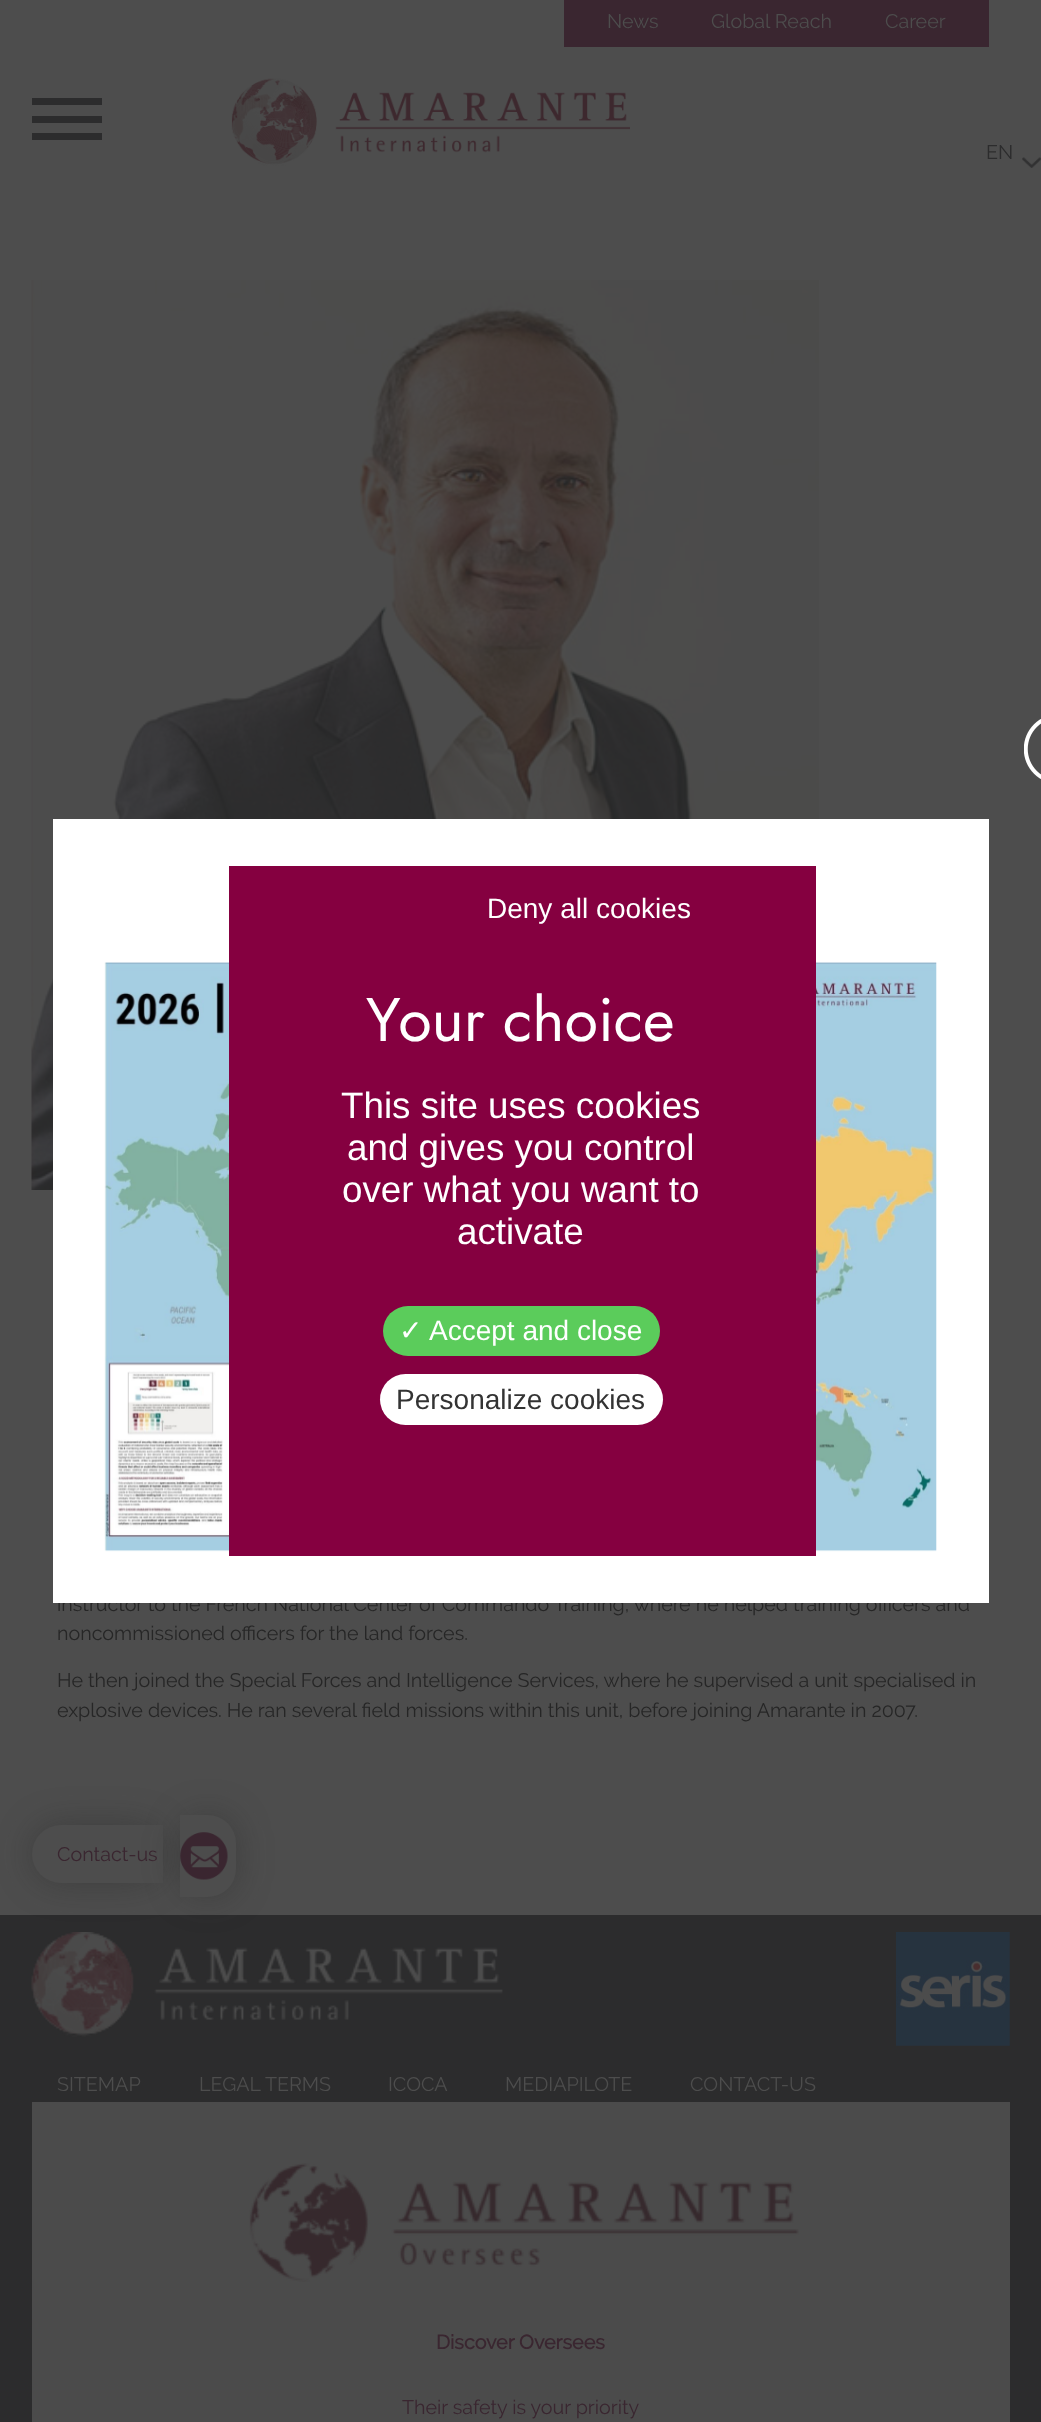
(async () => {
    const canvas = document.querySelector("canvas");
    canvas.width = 1041;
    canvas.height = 2422;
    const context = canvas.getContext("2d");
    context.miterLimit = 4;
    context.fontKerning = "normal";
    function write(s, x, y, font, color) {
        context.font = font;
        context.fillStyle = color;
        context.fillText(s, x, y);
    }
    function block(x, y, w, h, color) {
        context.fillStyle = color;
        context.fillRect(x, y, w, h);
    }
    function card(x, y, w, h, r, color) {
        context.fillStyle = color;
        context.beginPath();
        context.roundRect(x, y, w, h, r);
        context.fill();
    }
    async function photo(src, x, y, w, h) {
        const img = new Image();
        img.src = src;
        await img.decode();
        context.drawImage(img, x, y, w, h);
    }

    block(0, 0, 1041, 2422, "rgb(77, 77, 77)");
    block(564, 0, 425, 47, "rgb(58, 38, 48)");
    write("News", 607, 28, "19.7px Raleway", "rgb(77, 77, 77)");
    write("Global Reach", 711, 28, "19.7px Raleway", "rgb(77, 77, 77)");
    write("Career", 885, 28, "19.7px Raleway", "rgb(77, 77, 77)");
    block(32, 98, 70, 7, "rgb(44, 44, 45)");
    block(32, 116, 70, 7, "rgb(44, 44, 45)");
    block(32, 133, 70, 7, "rgb(44, 44, 45)");
    await photo("media/1.png", 231, 78, 399, 88);
    write("EN", 986, 159, "19.7px Raleway", "rgb(44, 44, 45)");
    await photo("media/2.png", 1022, 157, 19, 11);
    await photo("media/3.png", 31, 280, 788, 910);
    write("instructor to the French National Center of Commando Training, where he helped training officers and", 57, 1611, "19.7px Raleway", "rgb(38, 38, 38)");
    write("noncommissioned officers for the land forces.", 57, 1640, "19.7px Raleway", "rgb(38, 38, 38)");
    write("He then joined the Special Forces and Intelligence Services, where he supervised a unit specialised in", 57, 1687, "19.7px Raleway", "rgb(38, 38, 38)");
    write("explosive devices. He ran several field missions within this unit, before joining Amarante in 2007.", 57, 1717, "19.7px Raleway", "rgb(38, 38, 38)");
    block(0, 1915, 1041, 507, "rgb(44, 44, 45)");
    context.fillStyle = "rgba(38, 38, 38, 0.4)";
    context.filter = "blur(17.5px)";
    context.beginPath();
    context.roundRect(32, 1825, 131, 58, 29);
    context.fill();
    context.filter = "none";
    context.fillStyle = "rgb(77, 77, 77)";
    context.beginPath();
    context.roundRect(32, 1825, 131, 58, [29, 0, 0, 29]);
    context.fill();
    context.fillStyle = "rgba(38, 38, 38, 0.4)";
    context.filter = "blur(17.5px)";
    context.beginPath();
    context.roundRect(180, 1815, 56, 82, 28);
    context.fill();
    context.filter = "none";
    context.fillStyle = "rgb(77, 77, 77)";
    context.beginPath();
    context.roundRect(180, 1815, 56, 82, [0, 28, 28, 0]);
    context.fill();
    write("Contact-us", 57, 1861, "19.7px Raleway", "rgb(58, 38, 48)");
    await photo("media/4.png", 180, 1832, 48, 48);
    await photo("media/5.png", 31, 1932, 472, 105);
    await photo("media/6.png", 896, 1932, 114, 114);
    write("SITEMAP", 57, 2091, "19.7px Raleway", "rgb(77, 77, 77)");
    write("LEGAL TERMS", 199, 2091, "19.7px Raleway", "rgb(77, 77, 77)");
    write("ICOCA", 388, 2091, "19.7px Raleway", "rgb(77, 77, 77)");
    write("MEDIAPILOTE", 505, 2091, "19.7px Raleway", "rgb(77, 77, 77)");
    write("CONTACT-US", 690, 2091, "19.7px Raleway", "rgb(77, 77, 77)");
    block(32, 2102, 978, 320, "rgb(75, 75, 75)");
    await photo("media/7.png", 249, 2163, 550, 119);
    write("Discover Oversees", 436, 2349, "bold 19.7px Raleway", "rgb(58, 38, 48)");
    write("Their safety is your priority", 402, 2414, "19.7px Raleway", "rgb(58, 38, 48)");
    block(53, 819, 936, 784, "rgb(255, 255, 255)");
    await photo("media/8.png", 1024, 719, 17, 60);
    await photo("media/9.png", 104, 962, 833, 590);
    block(229, 866, 587, 690, "rgb(133, 0, 64)");
    write("Deny all cookies", 487, 918, "28px Liberation Sans", "rgb(255, 255, 255)");
    write("Your choice", 366, 1041, "61.25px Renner", "rgb(255, 255, 255)");
    write("This site uses cookies", 341, 1118, "36.75px Liberation Sans", "rgb(255, 255, 255)");
    write("and gives you control", 347, 1160, "36.75px Liberation Sans", "rgb(255, 255, 255)");
    write("over what you want to", 342, 1202, "36.75px Liberation Sans", "rgb(255, 255, 255)");
    write("activate", 457, 1244, "36.75px Liberation Sans", "rgb(255, 255, 255)");
    card(383, 1306, 277, 50, 25, "rgb(91, 204, 91)");
    write("✓", 399, 1340, "28px DejaVu Sans", "rgb(255, 255, 255)");
    write("Accept and close", 429, 1340, "28px Liberation Sans", "rgb(255, 255, 255)");
    card(380, 1374, 283, 51, 25.5, "rgb(255, 255, 255)");
    write("Personalize cookies", 396, 1409, "28px Liberation Sans", "rgb(51, 51, 51)");
})();
